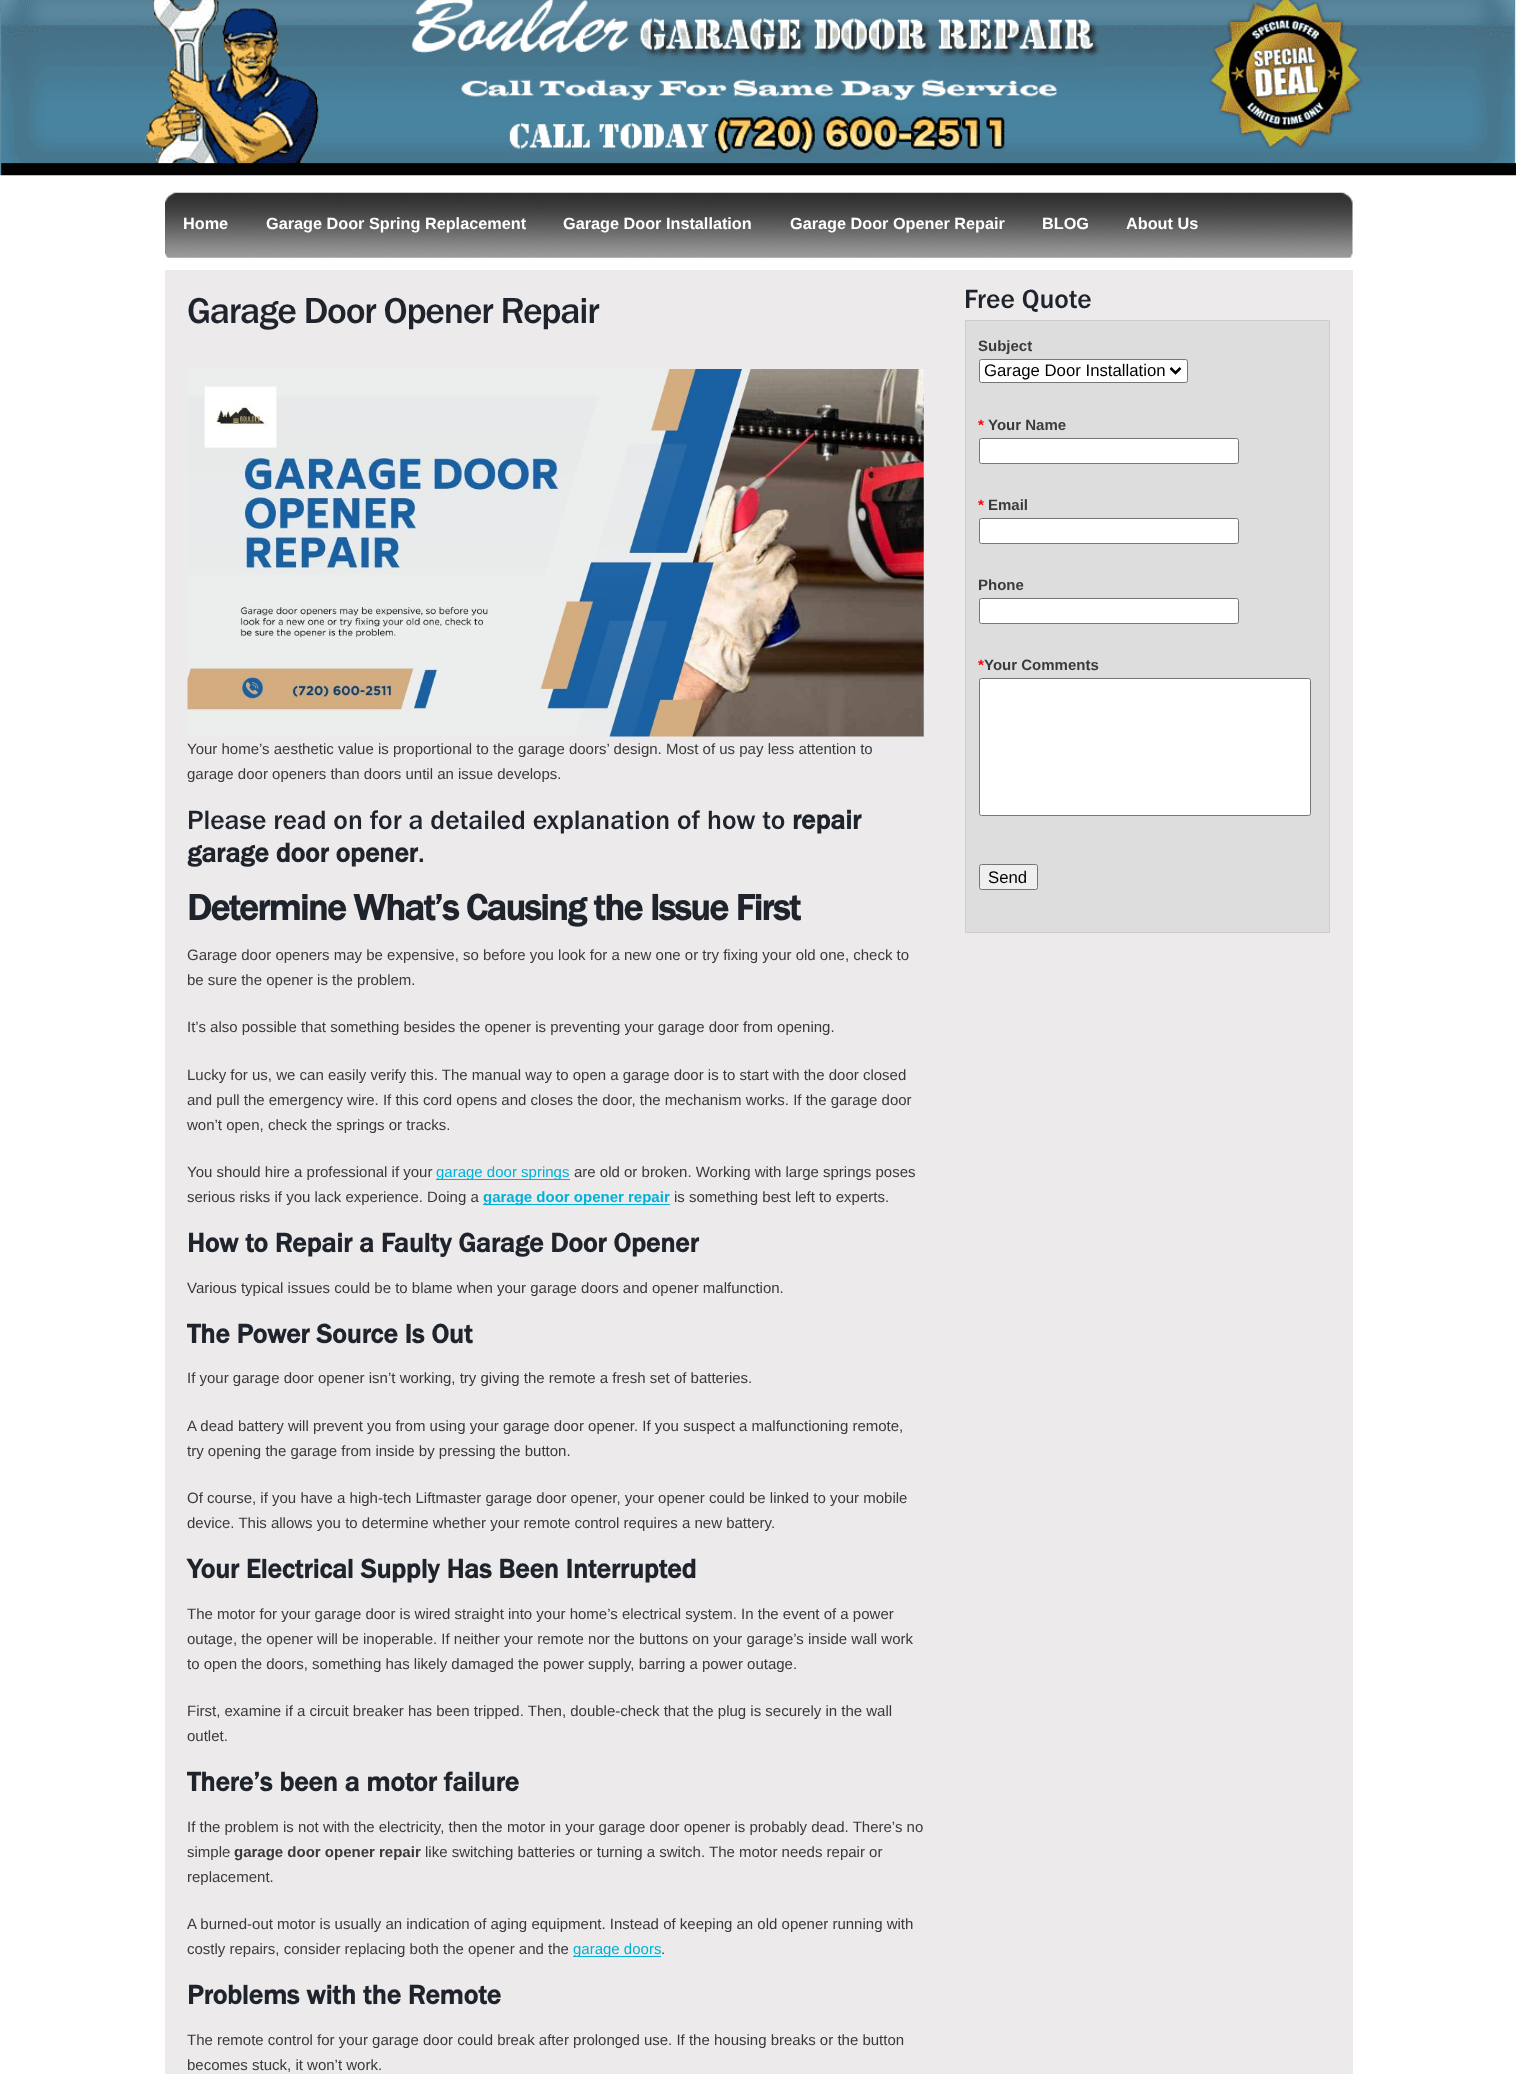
(async () => {
    const canvas = document.querySelector("canvas");
    canvas.width = 1516;
    canvas.height = 2074;
    const context = canvas.getContext("2d");
    context.miterLimit = 4;
    context.fontKerning = "normal";
    function write(s, x, y, font, color) {
        context.font = font;
        context.fillStyle = color;
        context.fillText(s, x, y);
    }
    function block(x, y, w, h, color) {
        context.fillStyle = color;
        context.fillRect(x, y, w, h);
    }
    async function photo(src, x, y, w, h) {
        const img = new Image();
        img.src = src;
        await img.decode();
        context.drawImage(img, x, y, w, h);
    }

    block(0, 0, 1516, 2074, "rgb(255, 255, 255)");
    await photo("media/1.png", 0, 0, 1516, 176);
    await photo("media/2.png", 165, 192, 1188, 66);
    write("Home", 183, 229, "bold 16.25px Liberation Sans", "rgb(255, 255, 255)");
    write("Garage Door Spring Replacement", 266, 229, "bold 16.25px Liberation Sans", "rgb(255, 255, 255)");
    write("Garage Door Installation", 563, 229, "bold 16.25px Liberation Sans", "rgb(255, 255, 255)");
    write("Garage Door Opener Repair", 790, 229, "bold 16.25px Liberation Sans", "rgb(255, 255, 255)");
    write("BLOG", 1042, 229, "bold 16.25px Liberation Sans", "rgb(255, 255, 255)");
    write("About Us", 1126, 229, "bold 16.25px Liberation Sans", "rgb(255, 255, 255)");
    block(165, 270, 1188, 1804, "rgb(236, 234, 235)");
    context.letterSpacing = "-1.25px";
    write("Garage Door Opener Repair", 187, 323, "500 37.5px Franklin Gothic", "rgb(31, 35, 44)");
    await photo("media/3.png", 187, 369, 737, 368);
    context.letterSpacing = "0px";
    write("Your home’s aesthetic value is proportional to the garage doors’ design. Most of us pay less attention to", 187, 754, "15px Liberation Sans", "rgb(58, 58, 58)");
    write("garage door openers than doors until an issue develops.", 187, 779, "15px Liberation Sans", "rgb(58, 58, 58)");
    write("Please read on for a detailed explanation of how to", 187, 829, "500 27.5px Franklin Gothic", "rgb(31, 35, 44)");
    write("repair", 792, 829, "bold 27.5px Franklin Gothic", "rgb(31, 35, 44)");
    write("garage door opener", 187, 862, "bold 27.5px Franklin Gothic", "rgb(31, 35, 44)");
    write(".", 418, 862, "500 27.5px Franklin Gothic", "rgb(31, 35, 44)");
    context.letterSpacing = "-1.25px";
    write("Determine What’s Causing the Issue First", 187, 920, "bold 37.5px Franklin Gothic", "rgb(31, 35, 44)");
    context.letterSpacing = "0px";
    write("Garage door openers may be expensive, so before you look for a new one or try fixing your old one, check to", 187, 960, "15px Liberation Sans", "rgb(58, 58, 58)");
    write("be sure the opener is the problem.", 187, 985, "15px Liberation Sans", "rgb(58, 58, 58)");
    write("It’s also possible that something besides the opener is preventing your garage door from opening.", 187, 1032, "15px Liberation Sans", "rgb(58, 58, 58)");
    write("Lucky for us, we can easily verify this. The manual way to open a garage door is to start with the door closed", 187, 1080, "15px Liberation Sans", "rgb(58, 58, 58)");
    write("and pull the emergency wire. If this cord opens and closes the door, the mechanism works. If the garage door", 187, 1105, "15px Liberation Sans", "rgb(58, 58, 58)");
    write("won’t open, check the springs or tracks.", 187, 1130, "15px Liberation Sans", "rgb(58, 58, 58)");
    write("You should hire a professional if your", 187, 1177, "15px Liberation Sans", "rgb(58, 58, 58)");
    block(436, 1179, 134, 1, "rgb(0, 178, 216)");
    write("garage door springs", 436, 1177, "15px Liberation Sans", "rgb(0, 178, 216)");
    write("are old or broken. Working with large springs poses", 574, 1177, "15px Liberation Sans", "rgb(58, 58, 58)");
    write("serious risks if you lack experience. Doing a", 187, 1202, "15px Liberation Sans", "rgb(58, 58, 58)");
    block(483, 1204, 187, 1, "rgb(0, 178, 216)");
    write("garage door opener repair", 483, 1202, "bold 15px Liberation Sans", "rgb(0, 178, 216)");
    write("is something best left to experts.", 674, 1202, "15px Liberation Sans", "rgb(58, 58, 58)");
    write("How to Repair a Faulty Garage Door Opener", 187, 1252, "bold 27.5px Franklin Gothic", "rgb(31, 35, 44)");
    write("Various typical issues could be to blame when your garage doors and opener malfunction.", 187, 1293, "15px Liberation Sans", "rgb(58, 58, 58)");
    write("The Power Source Is Out", 187, 1343, "bold 27.5px Franklin Gothic", "rgb(31, 35, 44)");
    write("If your garage door opener isn’t working, try giving the remote a fresh set of batteries.", 187, 1383, "15px Liberation Sans", "rgb(58, 58, 58)");
    write("A dead battery will prevent you from using your garage door opener. If you suspect a malfunctioning remote,", 187, 1431, "15px Liberation Sans", "rgb(58, 58, 58)");
    write("try opening the garage from inside by pressing the button.", 187, 1456, "15px Liberation Sans", "rgb(58, 58, 58)");
    write("Of course, if you have a high-tech Liftmaster garage door opener, your opener could be linked to your mobile", 187, 1503, "15px Liberation Sans", "rgb(58, 58, 58)");
    write("device. This allows you to determine whether your remote control requires a new battery.", 187, 1528, "15px Liberation Sans", "rgb(58, 58, 58)");
    write("Your Electrical Supply Has Been Interrupted", 187, 1578, "bold 27.5px Franklin Gothic", "rgb(31, 35, 44)");
    write("The motor for your garage door is wired straight into your home’s electrical system. In the event of a power", 187, 1619, "15px Liberation Sans", "rgb(58, 58, 58)");
    write("outage, the opener will be inoperable. If neither your remote nor the buttons on your garage’s inside wall work", 187, 1644, "15px Liberation Sans", "rgb(58, 58, 58)");
    write("to open the doors, something has likely damaged the power supply, barring a power outage.", 187, 1669, "15px Liberation Sans", "rgb(58, 58, 58)");
    write("First, examine if a circuit breaker has been tripped. Then, double-check that the plug is securely in the wall", 187, 1716, "15px Liberation Sans", "rgb(58, 58, 58)");
    write("outlet.", 187, 1741, "15px Liberation Sans", "rgb(58, 58, 58)");
    write("There’s been a motor failure", 187, 1791, "bold 27.5px Franklin Gothic", "rgb(31, 35, 44)");
    write("If the problem is not with the electricity, then the motor in your garage door opener is probably dead. There’s no", 187, 1832, "15px Liberation Sans", "rgb(58, 58, 58)");
    write("simple", 187, 1857, "15px Liberation Sans", "rgb(58, 58, 58)");
    write("garage door opener repair", 234, 1857, "bold 15px Liberation Sans", "rgb(58, 58, 58)");
    write("like switching batteries or turning a switch. The motor needs repair or", 425, 1857, "15px Liberation Sans", "rgb(58, 58, 58)");
    write("replacement.", 187, 1882, "15px Liberation Sans", "rgb(58, 58, 58)");
    write("A burned-out motor is usually an indication of aging equipment. Instead of keeping an old opener running with", 187, 1929, "15px Liberation Sans", "rgb(58, 58, 58)");
    write("costly repairs, consider replacing both the opener and the", 187, 1954, "15px Liberation Sans", "rgb(58, 58, 58)");
    block(573, 1956, 88, 1, "rgb(0, 178, 216)");
    write("garage doors", 573, 1954, "15px Liberation Sans", "rgb(0, 178, 216)");
    write(".", 661, 1954, "15px Liberation Sans", "rgb(58, 58, 58)");
    write("Problems with the Remote", 187, 2004, "bold 27.5px Franklin Gothic", "rgb(31, 35, 44)");
    write("The remote control for your garage door could break after prolonged use. If the housing breaks or the button", 187, 2045, "15px Liberation Sans", "rgb(58, 58, 58)");
    write("becomes stuck, it won’t work.", 187, 2070, "15px Liberation Sans", "rgb(58, 58, 58)");
    write("Free Quote", 964, 308, "500 27.5px Franklin Gothic", "rgb(31, 35, 44)");
    context.fillStyle = "rgb(221, 221, 221)";
    context.beginPath();
    context.rect(965.5, 320.5, 364, 612);
    context.fill();
    context.strokeStyle = "rgb(204, 204, 204)";
    context.stroke();
    write("Subject", 978, 351, "bold 15px Liberation Sans", "rgb(58, 58, 58)");
    context.fillStyle = "rgb(255, 255, 255)";
    context.beginPath();
    context.roundRect(979.5, 359.5, 208, 23, 2);
    context.fill();
    context.strokeStyle = "rgb(118, 118, 118)";
    context.stroke();
    context.beginPath();
    context.moveTo(1170.5, 368);
    context.lineTo(1175.5, 373);
    context.lineTo(1180.5, 368);
    context.strokeStyle = "rgb(0, 0, 0)";
    context.lineWidth = 2.5;
    context.stroke();
    write("Garage Door Installation", 984, 376, "16.75px Liberation Sans", "rgb(0, 0, 0)");
    write("*", 978, 430, "bold 15px Liberation Sans", "rgb(255, 0, 0)");
    write("Your Name", 988, 430, "bold 15px Liberation Sans", "rgb(58, 58, 58)");
    context.fillStyle = "rgb(255, 255, 255)";
    context.beginPath();
    context.roundRect(979.5, 438.5, 259, 25, 2);
    context.fill();
    context.strokeStyle = "rgb(118, 118, 118)";
    context.lineWidth = 1;
    context.stroke();
    write("*", 978, 510, "bold 15px Liberation Sans", "rgb(255, 0, 0)");
    write("Email", 988, 510, "bold 15px Liberation Sans", "rgb(58, 58, 58)");
    context.fillStyle = "rgb(255, 255, 255)";
    context.beginPath();
    context.roundRect(979.5, 518.5, 259, 25, 2);
    context.fill();
    context.stroke();
    write("Phone", 978, 590, "bold 15px Liberation Sans", "rgb(58, 58, 58)");
    context.fillStyle = "rgb(255, 255, 255)";
    context.beginPath();
    context.roundRect(979.5, 598.5, 259, 25, 2);
    context.fill();
    context.stroke();
    write("*", 978, 670, "bold 15px Liberation Sans", "rgb(255, 0, 0)");
    write("Your Comments", 984, 670, "bold 15px Liberation Sans", "rgb(58, 58, 58)");
    context.fillStyle = "rgb(255, 255, 255)";
    context.beginPath();
    context.roundRect(979.5, 678.5, 331, 137, 2);
    context.fill();
    context.stroke();
    context.fillStyle = "rgb(239, 239, 239)";
    context.beginPath();
    context.roundRect(979.5, 864.5, 58, 25, 2);
    context.fill();
    context.stroke();
    write("Send", 988, 883, "16.75px Liberation Sans", "rgb(0, 0, 0)");
})();
